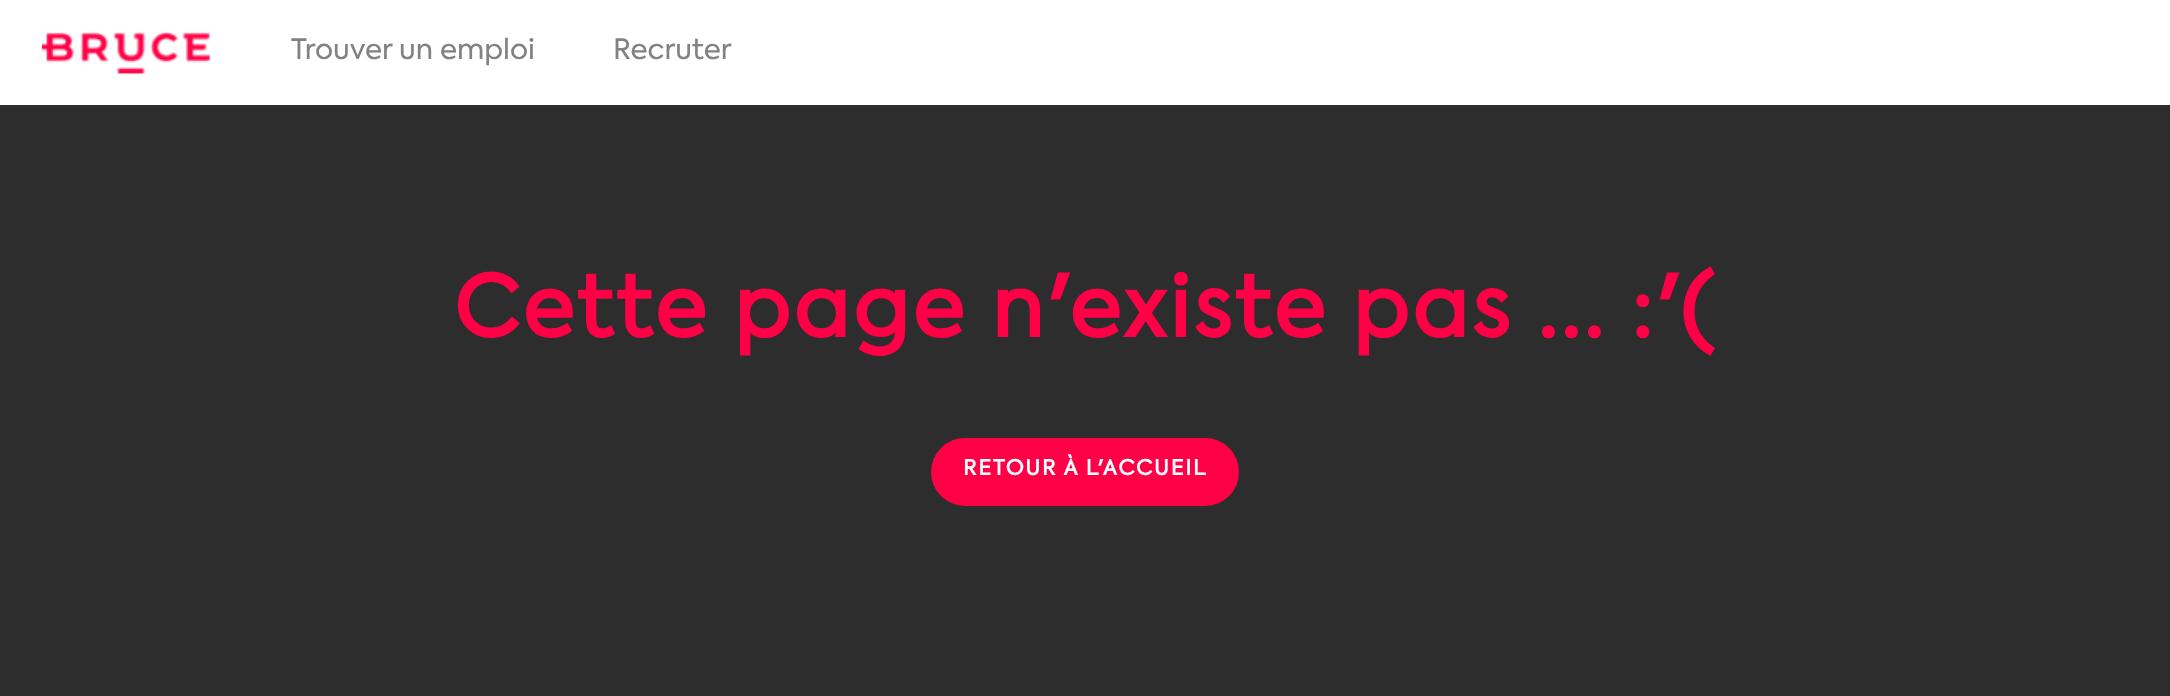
(async () => {
    const canvas = document.querySelector("canvas");
    canvas.width = 2170;
    canvas.height = 696;
    const context = canvas.getContext("2d");
    context.miterLimit = 4;
    context.fontKerning = "normal";
    function write(s, x, y, font, color) {
        context.font = font;
        context.fillStyle = color;
        context.fillText(s, x, y);
    }
    function block(x, y, w, h, color) {
        context.fillStyle = color;
        context.fillRect(x, y, w, h);
    }
    async function photo(src, x, y, w, h) {
        const img = new Image();
        img.src = src;
        await img.decode();
        context.drawImage(img, x, y, w, h);
    }

    block(0, 0, 2170, 696, "rgb(45, 45, 45)");
    block(0, 0, 2170, 105, "rgb(255, 255, 255)");
    await photo("media/1.png", 42, 32, 168, 42);
    write("Trouver un emploi", 291, 59, "28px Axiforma", "rgb(130, 130, 130)");
    write("Recruter", 613, 59, "28px Axiforma", "rgb(130, 130, 130)");
    context.letterSpacing = "3.5px";
    write("Cette page n'existe pas ... :'(", 454, 337, "bold 84px Axiforma", "rgb(255, 0, 70)");
    context.beginPath();
    context.roundRect(933, 440, 304, 64, 32);
    context.fill();
    context.strokeStyle = "rgb(255, 0, 70)";
    context.lineWidth = 4;
    context.stroke();
    context.letterSpacing = "1.75px";
    write("RETOUR À L'ACCUEIL", 963, 475, "bold 21px Axiforma", "rgb(255, 255, 255)");
})();
